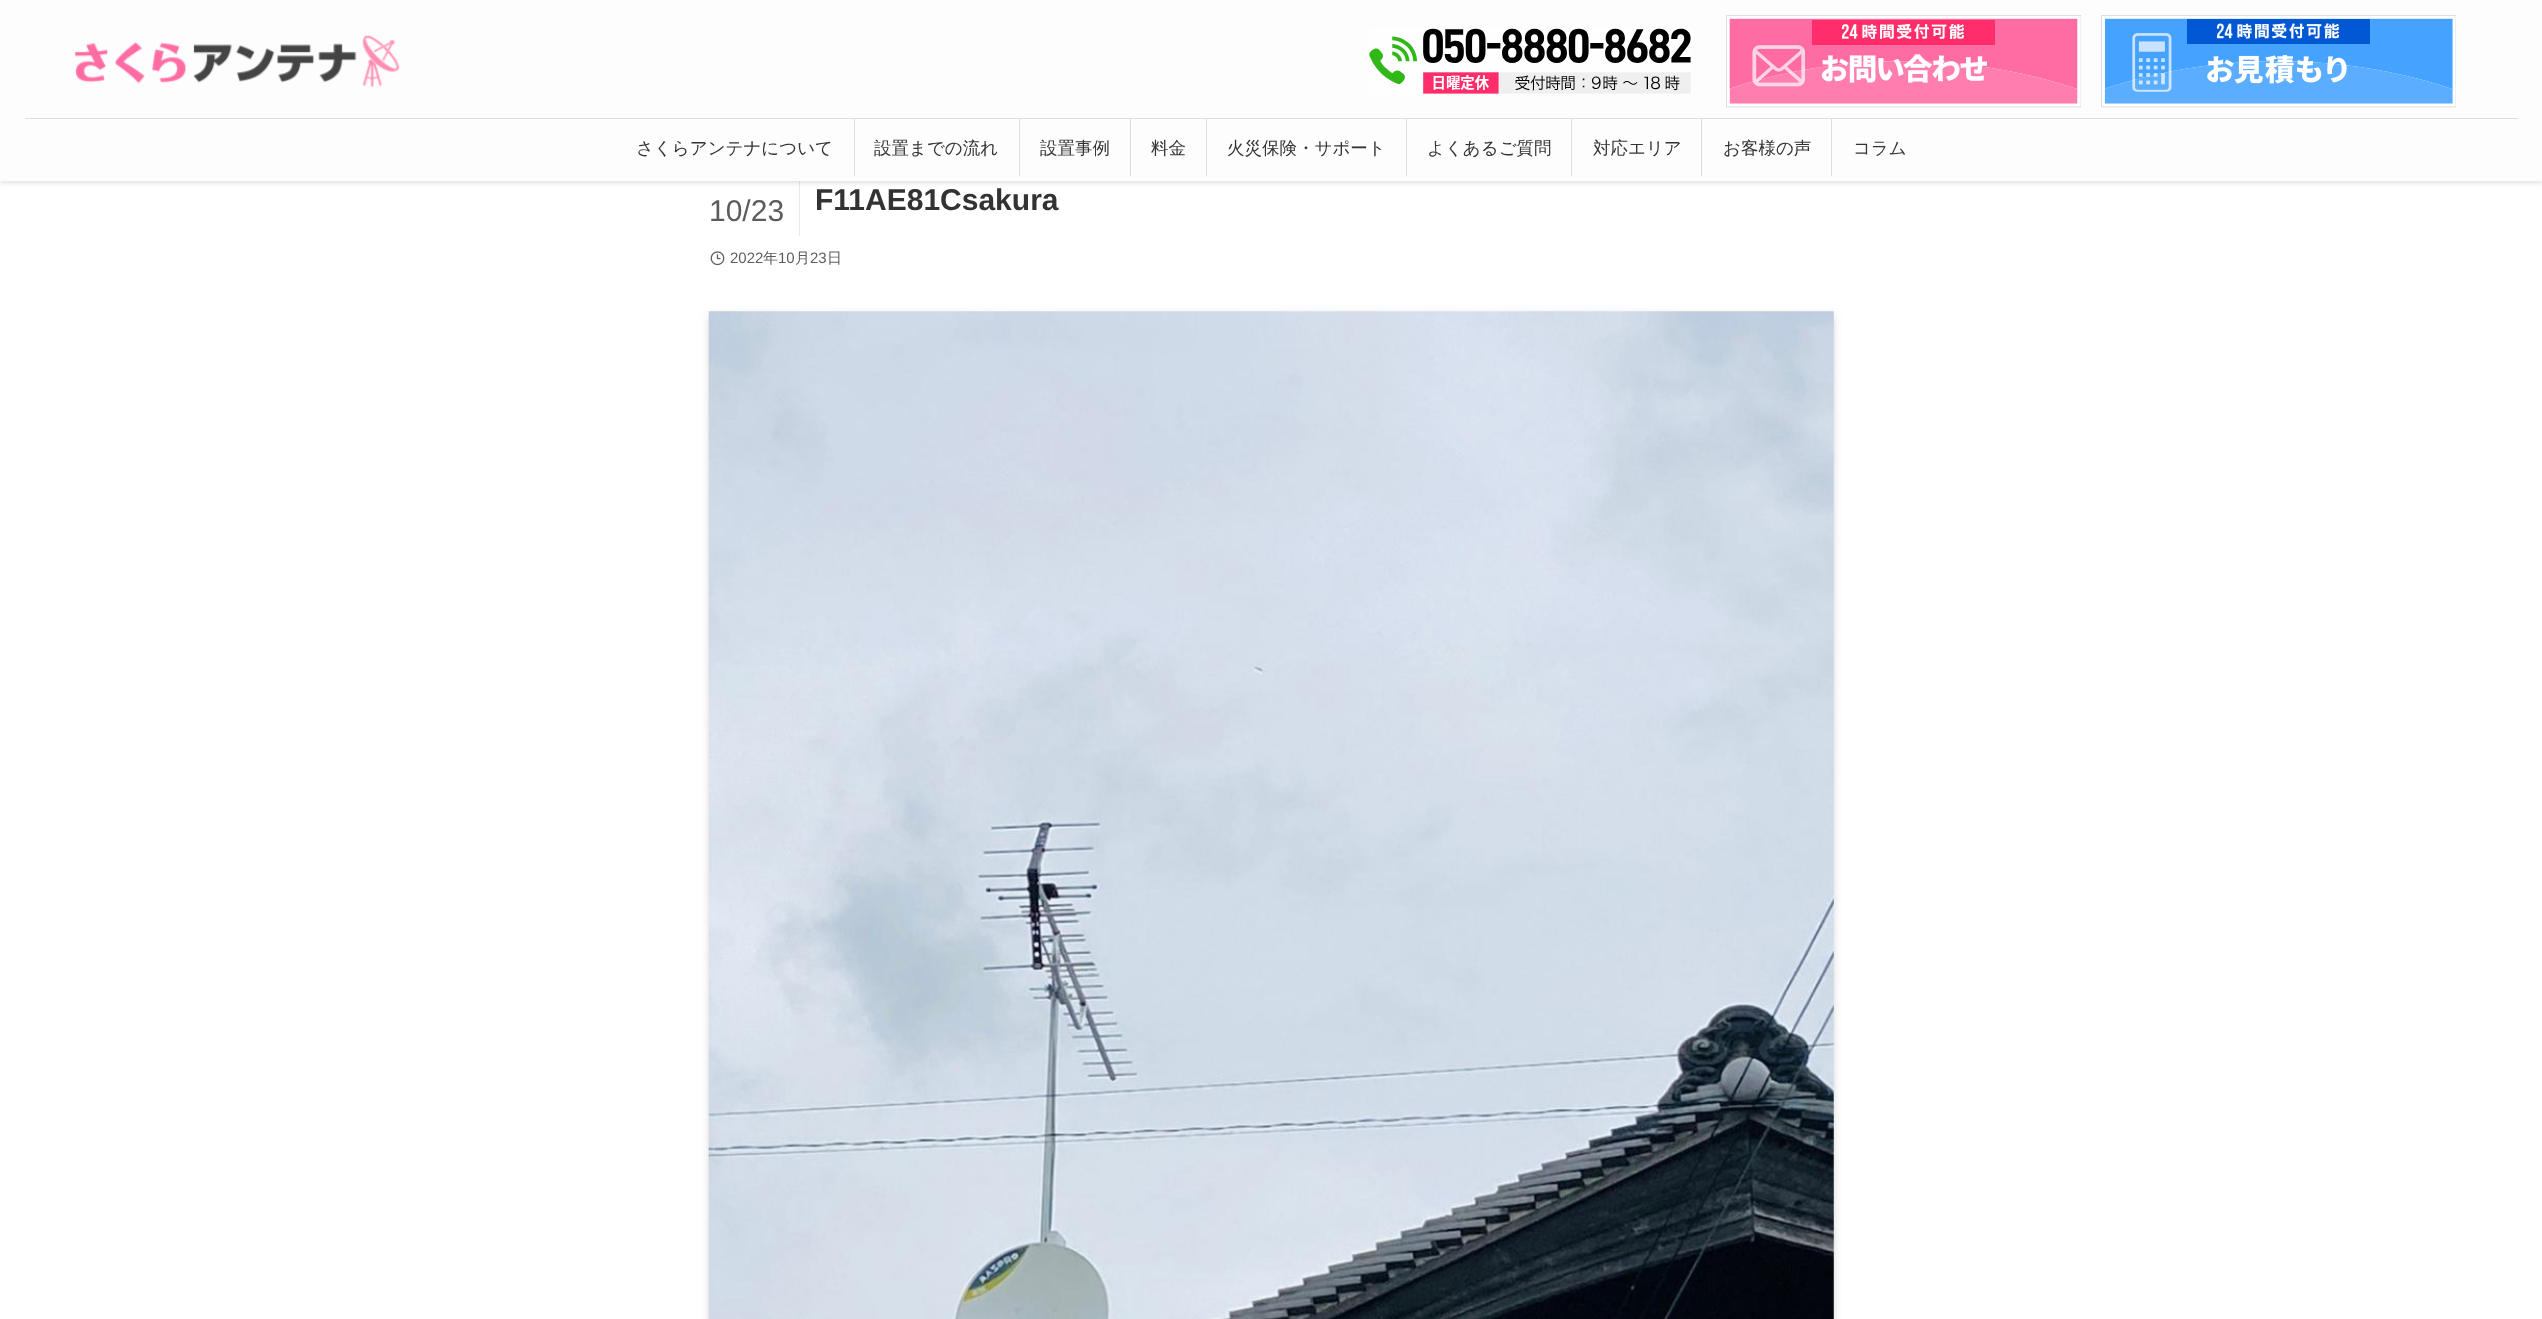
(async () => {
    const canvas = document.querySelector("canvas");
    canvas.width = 2542;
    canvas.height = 1319;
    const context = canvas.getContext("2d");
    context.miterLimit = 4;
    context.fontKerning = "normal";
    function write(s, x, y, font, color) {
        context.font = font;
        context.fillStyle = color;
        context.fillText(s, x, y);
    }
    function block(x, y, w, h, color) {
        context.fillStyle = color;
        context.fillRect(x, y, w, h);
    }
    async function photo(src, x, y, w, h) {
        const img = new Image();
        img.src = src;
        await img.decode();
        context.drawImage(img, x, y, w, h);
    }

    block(0, 0, 2542, 1319, "rgb(255, 255, 255)");
    block(799, 181, 1, 55, "rgb(233, 233, 233)");
    context.fillStyle = "rgba(0, 0, 0, 0.12)";
    context.filter = "blur(2.5px)";
    context.beginPath();
    context.rect(0, 1, 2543, 182);
    context.fill();
    context.filter = "none";
    block(0, 0, 2542, 181, "rgb(253, 253, 253)");
    await photo("media/1.png", 75, 35, 325, 53);
    await photo("media/2.png", 1369, 28, 322, 66);
    await photo("media/3.png", 1726, 15, 355, 93);
    await photo("media/4.png", 2101, 15, 355, 93);
    block(25, 118, 2493, 1, "rgb(221, 221, 221)");
    block(854, 119, 1, 57, "rgb(221, 221, 221)");
    write("さくらアンテナについて", 636, 154, "500 17.5px WenQuanYi Zen Hei", "rgb(51, 51, 51)");
    block(1019, 119, 1, 57, "rgb(221, 221, 221)");
    write("設置までの流れ", 874, 154, "500 17.5px WenQuanYi Zen Hei", "rgb(51, 51, 51)");
    block(1130, 119, 1, 57, "rgb(221, 221, 221)");
    write("設置事例", 1040, 154, "500 17.5px WenQuanYi Zen Hei", "rgb(51, 51, 51)");
    block(1206, 119, 1, 57, "rgb(221, 221, 221)");
    write("料金", 1151, 154, "500 17.5px WenQuanYi Zen Hei", "rgb(51, 51, 51)");
    block(1406, 119, 1, 57, "rgb(221, 221, 221)");
    write("火災保険・サポート", 1227, 154, "500 17.5px WenQuanYi Zen Hei", "rgb(51, 51, 51)");
    block(1571, 119, 1, 57, "rgb(221, 221, 221)");
    write("よくあるご質問", 1427, 154, "500 17.5px WenQuanYi Zen Hei", "rgb(51, 51, 51)");
    block(1701, 119, 1, 57, "rgb(221, 221, 221)");
    write("対応エリア", 1593, 154, "500 17.5px WenQuanYi Zen Hei", "rgb(51, 51, 51)");
    block(1831, 119, 1, 57, "rgb(221, 221, 221)");
    write("お客様の声", 1723, 154, "500 17.5px WenQuanYi Zen Hei", "rgb(51, 51, 51)");
    write("コラム", 1853, 154, "500 17.5px WenQuanYi Zen Hei", "rgb(51, 51, 51)");
    write("10/23", 709, 221, "30px Liberation Sans", "rgb(92, 92, 92)");
    write("F11AE81Csakura", 815, 210, "bold 30px Liberation Sans", "rgb(51, 51, 51)");
    await photo("media/5.png", 710, 251, 15, 15);
    write("2022", 730, 263, "15px Liberation Sans", "rgb(92, 92, 92)");
    write("年", 763, 263, "500 15px WenQuanYi Zen Hei", "rgb(92, 92, 92)");
    write("10", 778, 263, "15px Liberation Sans", "rgb(92, 92, 92)");
    write("月", 795, 263, "500 15px WenQuanYi Zen Hei", "rgb(92, 92, 92)");
    write("23", 810, 263, "15px Liberation Sans", "rgb(92, 92, 92)");
    write("日", 827, 263, "500 15px WenQuanYi Zen Hei", "rgb(92, 92, 92)");
    context.fillStyle = "rgba(0, 0, 0, 0.2)";
    context.filter = "blur(5px)";
    context.beginPath();
    context.rect(714, 321, 1115, 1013);
    context.fill();
    context.filter = "none";
    context.fillStyle = "rgba(0, 0, 0, 0.1)";
    context.filter = "blur(5px)";
    context.beginPath();
    context.rect(709, 314, 1125, 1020);
    context.fill();
    context.filter = "none";
    await photo("media/6.png", 708, 311, 1126, 1008);
})();
